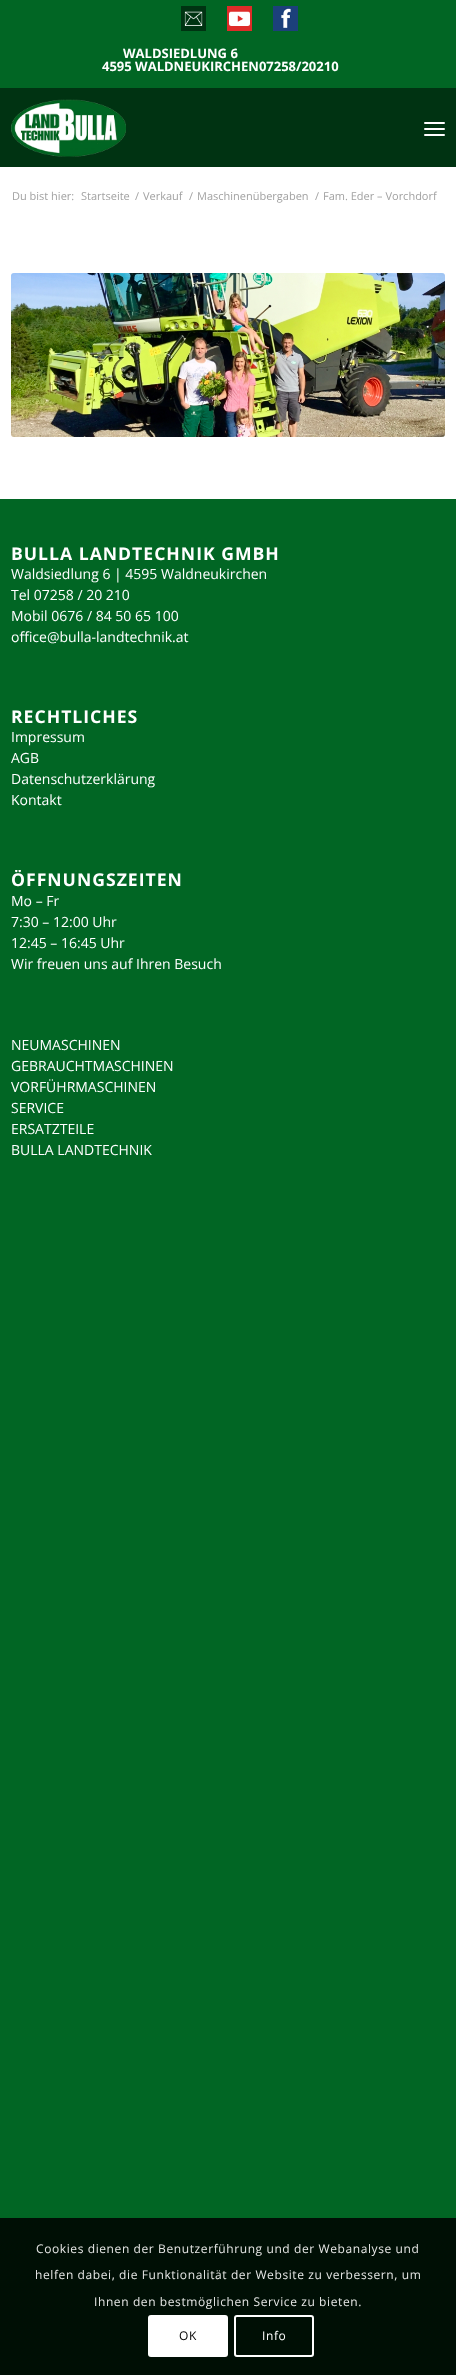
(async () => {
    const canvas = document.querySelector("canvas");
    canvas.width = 456;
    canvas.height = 2375;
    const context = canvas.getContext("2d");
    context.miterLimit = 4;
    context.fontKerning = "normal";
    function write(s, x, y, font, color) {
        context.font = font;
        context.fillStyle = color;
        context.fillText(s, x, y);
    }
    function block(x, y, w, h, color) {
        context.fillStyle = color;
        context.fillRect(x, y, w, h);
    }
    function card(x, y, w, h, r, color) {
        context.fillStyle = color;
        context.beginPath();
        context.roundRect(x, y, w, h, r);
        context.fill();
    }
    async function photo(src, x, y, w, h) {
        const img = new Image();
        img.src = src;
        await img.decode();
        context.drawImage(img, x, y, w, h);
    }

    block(0, 0, 456, 2375, "rgb(1, 102, 36)");
    block(0, 167, 456, 332, "rgb(255, 255, 255)");
    await photo("media/1.png", 181, 6, 25, 25);
    await photo("media/2.png", 227, 6, 25, 25);
    await photo("media/3.png", 273, 6, 25, 25);
    write("WALDSIEDLUNG 6", 123, 58, "bold 13px Open Sans", "rgb(255, 255, 255)");
    write("4595 WALDNEUKIRCHEN07258/20210", 102, 71, "bold 13px Open Sans", "rgb(255, 255, 255)");
    block(0, 88, 456, 79, "rgb(0, 51, 18)");
    await photo("media/4.png", 11, 99, 115, 58);
    card(424, 128, 21, 2, 1, "rgb(255, 255, 255)");
    card(424, 122, 21, 2, 1, "rgb(255, 255, 255)");
    card(424, 134, 21, 2, 1, "rgb(255, 255, 255)");
    write("Du bist hier:", 12, 200, "11px Open Sans", "rgb(162, 162, 162)");
    write("Startseite", 81, 200, "11px Open Sans", "rgb(162, 162, 162)");
    write("/", 135, 200, "11px Open Sans", "rgb(162, 162, 162)");
    write("Verkauf", 143, 200, "11px Open Sans", "rgb(162, 162, 162)");
    write("/", 189, 200, "11px Open Sans", "rgb(162, 162, 162)");
    write("Maschinenübergaben", 197, 200, "11px Open Sans", "rgb(162, 162, 162)");
    write("/", 315, 200, "11px Open Sans", "rgb(162, 162, 162)");
    write("Fam. Eder – Vorchdorf", 323, 200, "11px Open Sans", "rgb(162, 162, 162)");
    await photo("media/5.png", 11, 273, 434, 164);
    context.letterSpacing = "1px";
    write("BULLA LANDTECHNIK GMBH", 11, 560, "bold 17.6px Open Sans", "rgb(255, 255, 255)");
    context.letterSpacing = "0px";
    write("Waldsiedlung 6 | 4595 Waldneukirchen", 11, 579, "14px Open Sans", "rgb(255, 255, 255)");
    write("Tel 07258 / 20 210", 11, 600, "14px Open Sans", "rgb(255, 255, 255)");
    write("Mobil 0676 / 84 50 65 100", 11, 621, "14px Open Sans", "rgb(255, 255, 255)");
    write("office@bulla-landtechnik.at", 11, 642, "14px Open Sans", "rgb(255, 255, 255)");
    context.letterSpacing = "1px";
    write("RECHTLICHES", 11, 723, "bold 17.6px Open Sans", "rgb(255, 255, 255)");
    context.letterSpacing = "0px";
    write("Impressum", 11, 742, "14px Open Sans", "rgb(255, 255, 255)");
    write("AGB", 11, 763, "14px Open Sans", "rgb(255, 255, 255)");
    write("Datenschutzerklärung", 11, 784, "14px Open Sans", "rgb(255, 255, 255)");
    write("Kontakt", 11, 805, "14px Open Sans", "rgb(255, 255, 255)");
    context.save();
    context.beginPath();
    context.rect(11, 870, 434, 104);
    context.clip();
    context.letterSpacing = "1px";
    write("ÖFFNUNGSZEITEN", 11, 886, "bold 17.6px Open Sans", "rgb(255, 255, 255)");
    context.restore();
    write("Mo – Fr", 11, 906, "14px Open Sans", "rgb(255, 255, 255)");
    write("7:30 – 12:00 Uhr", 11, 927, "14px Open Sans", "rgb(255, 255, 255)");
    write("12:45 – 16:45 Uhr", 11, 948, "14px Open Sans", "rgb(255, 255, 255)");
    write("Wir freuen uns auf Ihren Besuch", 11, 969, "14px Open Sans", "rgb(255, 255, 255)");
    write("NEUMASCHINEN", 11, 1050, "14px Open Sans", "rgb(255, 255, 255)");
    write("GEBRAUCHTMASCHINEN", 11, 1071, "14px Open Sans", "rgb(255, 255, 255)");
    write("VORFÜHRMASCHINEN", 11, 1092, "14px Open Sans", "rgb(255, 255, 255)");
    write("SERVICE", 11, 1113, "14px Open Sans", "rgb(255, 255, 255)");
    write("ERSATZTEILE", 11, 1134, "14px Open Sans", "rgb(255, 255, 255)");
    write("BULLA LANDTECHNIK", 11, 1155, "14px Open Sans", "rgb(255, 255, 255)");
    block(0, 2218, 456, 157, "rgb(0, 15, 5)");
    context.letterSpacing = "0.6px";
    write("Cookies dienen der Benutzerführung und der Webanalyse und", 36, 2253, "12px Open Sans", "rgb(230, 231, 230)");
    write("helfen dabei, die Funktionalität der Website zu verbessern, um", 35, 2279, "12px Open Sans", "rgb(230, 231, 230)");
    write("Ihnen den bestmöglichen Service zu bieten.", 94, 2306, "12px Open Sans", "rgb(230, 231, 230)");
    card(148, 2315, 80, 42, 3, "rgb(255, 255, 255)");
    write("OK", 179, 2340, "12px Open Sans", "rgb(0, 0, 0)");
    context.beginPath();
    context.roundRect(235, 2316, 78, 40, 2);
    context.strokeStyle = "rgb(255, 255, 255)";
    context.lineWidth = 2;
    context.stroke();
    write("Info", 262, 2340, "12px Open Sans", "rgb(255, 255, 255)");
})();
